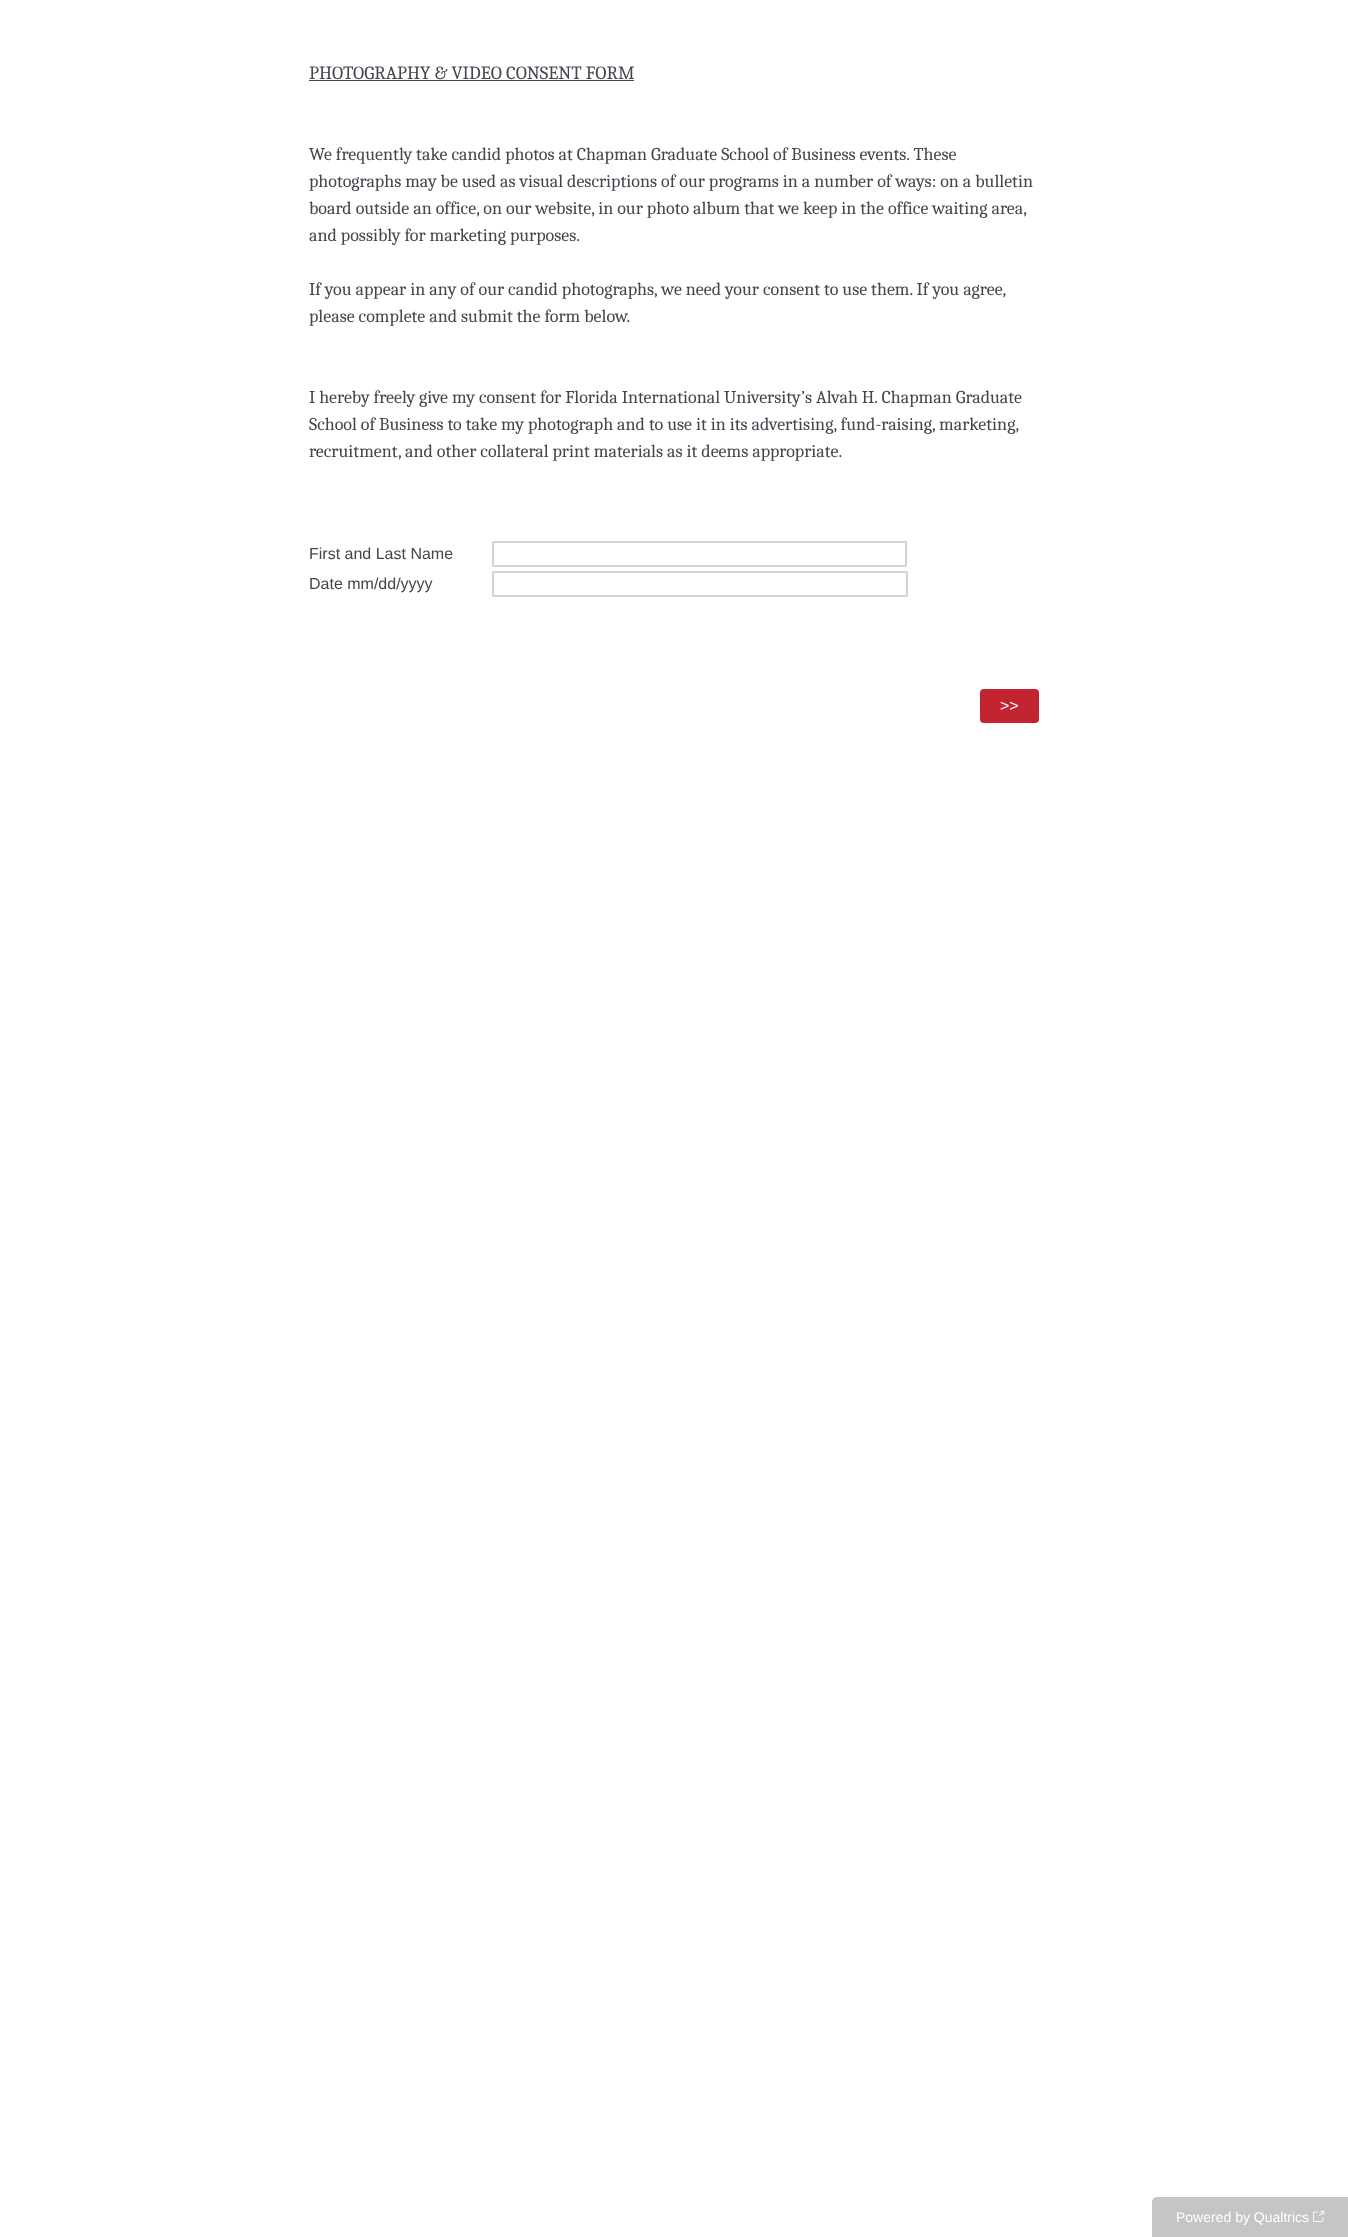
(async () => {
    const canvas = document.querySelector("canvas");
    canvas.width = 1348;
    canvas.height = 2237;
    const context = canvas.getContext("2d");
    context.miterLimit = 4;
    context.fontKerning = "normal";
    function write(s, x, y, font, color) {
        context.font = font;
        context.fillStyle = color;
        context.fillText(s, x, y);
    }
    function block(x, y, w, h, color) {
        context.fillStyle = color;
        context.fillRect(x, y, w, h);
    }
    function card(x, y, w, h, r, color) {
        context.fillStyle = color;
        context.beginPath();
        context.roundRect(x, y, w, h, r);
        context.fill();
    }
    async function photo(src, x, y, w, h) {
        const img = new Image();
        img.src = src;
        await img.decode();
        context.drawImage(img, x, y, w, h);
    }

    block(0, 0, 1348, 2237, "rgb(255, 255, 255)");
    write("PHOTOGRAPHY & VIDEO CONSENT FORM", 309, 79, "18.7px Caladea", "rgb(67, 70, 77)");
    block(309, 80, 325, 1, "rgb(67, 70, 77)");
    write("We frequently take candid photos at Chapman Graduate School of Business events. These", 309, 160, "18px Caladea", "rgb(67, 70, 77)");
    write("photographs may be used as visual descriptions of our programs in a number of ways: on a bulletin", 309, 187, "18px Caladea", "rgb(67, 70, 77)");
    write("board outside an office, on our website, in our photo album that we keep in the office waiting area,", 309, 214, "18px Caladea", "rgb(67, 70, 77)");
    write("and possibly for marketing purposes.", 309, 241, "18px Caladea", "rgb(67, 70, 77)");
    write("If you appear in any of our candid photographs, we need your consent to use them. If you agree,", 309, 295, "18px Caladea", "rgb(67, 70, 77)");
    write("please complete and submit the form below.", 309, 322, "18px Caladea", "rgb(67, 70, 77)");
    write("I hereby freely give my consent for Florida International University’s Alvah H. Chapman Graduate", 309, 403, "18px Caladea", "rgb(67, 70, 77)");
    write("School of Business to take my photograph and to use it in its advertising, fund-raising, marketing,", 309, 430, "18px Caladea", "rgb(67, 70, 77)");
    write("recruitment, and other collateral print materials as it deems appropriate.", 309, 457, "18px Caladea", "rgb(67, 70, 77)");
    write("First and Last Name", 309, 559, "16px Liberation Sans", "rgb(67, 70, 77)");
    context.beginPath();
    context.roundRect(493, 542, 413, 24, 1);
    context.strokeStyle = "rgb(210, 210, 214)";
    context.lineWidth = 2;
    context.stroke();
    write("Date mm/dd/yyyy", 309, 589, "16px Liberation Sans", "rgb(67, 70, 77)");
    context.beginPath();
    context.roundRect(493, 572, 414, 24, 1);
    context.stroke();
    card(980, 689, 59, 34, 4, "rgb(195, 36, 50)");
    write(">>", 1000, 711, "16px Liberation Sans", "rgb(255, 255, 255)");
    context.fillStyle = "rgb(197, 197, 199)";
    context.beginPath();
    context.roundRect(1152, 2197, 196, 40, [5, 0, 0, 0]);
    context.fill();
    write("Powered by Qualtrics", 1176, 2222, "14px Liberation Sans", "rgb(255, 255, 255)");
    await photo("media/1.png", 1313, 2210, 12, 12);
})();
